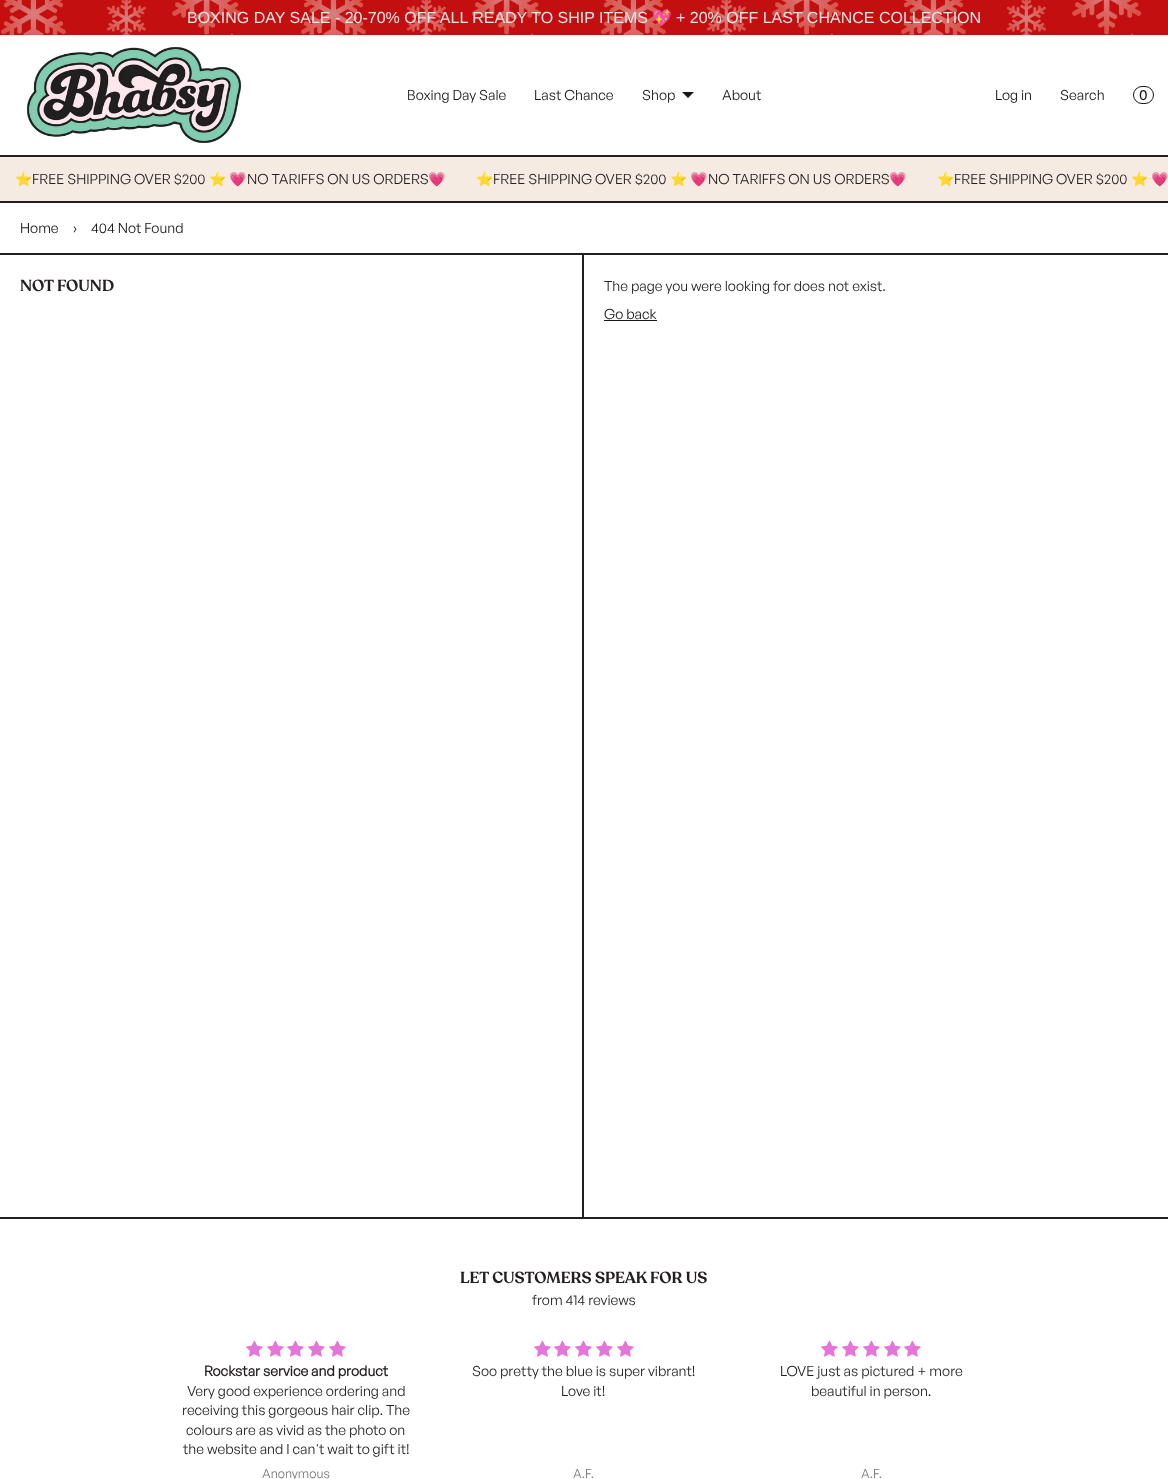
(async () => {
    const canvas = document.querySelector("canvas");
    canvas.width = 1168;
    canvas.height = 1479;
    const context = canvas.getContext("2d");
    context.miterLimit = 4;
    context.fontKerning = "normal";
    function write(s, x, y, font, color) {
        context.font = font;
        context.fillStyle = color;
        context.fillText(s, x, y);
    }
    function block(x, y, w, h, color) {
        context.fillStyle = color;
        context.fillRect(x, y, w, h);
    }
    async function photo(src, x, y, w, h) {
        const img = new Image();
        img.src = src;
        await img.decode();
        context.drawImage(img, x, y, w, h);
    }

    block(0, 0, 1168, 1479, "rgb(255, 255, 255)");
    await photo("media/1.png", 0, 0, 1168, 35);
    write("BOXING DAY SALE - 20-70% OFF ALL READY TO SHIP ITEMS", 187, 23, "16px Liberation Sans", "rgb(229, 229, 229)");
    write("💖", 652, 23, "16px Noto Color Emoji", "rgb(229, 229, 229)");
    write("+ 20% OFF LAST CHANCE COLLECTION", 676, 23, "16px Liberation Sans", "rgb(229, 229, 229)");
    block(0, 155, 1168, 2, "rgb(35, 31, 32)");
    await photo("media/2.png", 27, 47, 215, 96);
    write("Boxing Day Sale", 407, 100, "14px General Sans", "rgb(24, 24, 24)");
    write("Last Chance", 534, 100, "14px General Sans", "rgb(24, 24, 24)");
    write("Shop", 642, 100, "14px General Sans", "rgb(24, 24, 24)");
    context.beginPath();
    context.moveTo(682, 92);
    context.lineTo(694, 92);
    context.lineTo(688, 98);
    context.closePath();
    context.fill();
    write("About", 722, 100, "14px General Sans", "rgb(24, 24, 24)");
    write("Log in", 995, 100, "14px General Sans", "rgb(24, 24, 24)");
    write("Search", 1060, 100, "14px General Sans", "rgb(24, 24, 24)");
    context.beginPath();
    context.roundRect(1133.5, 86.5, 20, 17, 8.5);
    context.strokeStyle = "rgb(24, 24, 24)";
    context.stroke();
    context.letterSpacing = "1px";
    write("0", 1139, 100, "bold 14px General Sans", "rgb(24, 24, 24)");
    block(0, 157, 1168, 44, "rgb(246, 235, 227)");
    block(0, 201, 1168, 2, "rgb(35, 31, 32)");
    context.letterSpacing = "0px";
    write("⭐", 15, 184, "14px Noto Color Emoji", "rgb(35, 31, 32)");
    write("FREE SHIPPING OVER $200", 32, 184, "14px General Sans", "rgb(35, 31, 32)");
    write("⭐", 209, 184, "14px Noto Color Emoji", "rgb(35, 31, 32)");
    write("💗", 229, 184, "14px Noto Color Emoji", "rgb(35, 31, 32)");
    write("NO TARIFFS ON US ORDERS", 247, 184, "14px General Sans", "rgb(35, 31, 32)");
    write("💗", 428, 184, "14px Noto Color Emoji", "rgb(35, 31, 32)");
    write("⭐", 476, 184, "14px Noto Color Emoji", "rgb(35, 31, 32)");
    write("FREE SHIPPING OVER $200", 493, 184, "14px General Sans", "rgb(35, 31, 32)");
    write("⭐", 670, 184, "14px Noto Color Emoji", "rgb(35, 31, 32)");
    write("💗", 690, 184, "14px Noto Color Emoji", "rgb(35, 31, 32)");
    write("NO TARIFFS ON US ORDERS", 708, 184, "14px General Sans", "rgb(35, 31, 32)");
    write("💗", 889, 184, "14px Noto Color Emoji", "rgb(35, 31, 32)");
    write("⭐", 937, 184, "14px Noto Color Emoji", "rgb(35, 31, 32)");
    write("FREE SHIPPING OVER $200", 954, 184, "14px General Sans", "rgb(35, 31, 32)");
    write("⭐", 1131, 184, "14px Noto Color Emoji", "rgb(35, 31, 32)");
    write("💗", 1151, 184, "14px Noto Color Emoji", "rgb(35, 31, 32)");
    block(0, 253, 1168, 2, "rgb(35, 31, 32)");
    write("Home", 20, 233, "14px General Sans", "rgb(24, 24, 24)");
    write("›", 73, 233, "14px General Sans", "rgb(35, 31, 32)");
    write("404 Not Found", 91, 233, "14px General Sans", "rgb(24, 24, 24)");
    block(0, 1217, 1168, 2, "rgb(35, 31, 32)");
    block(582, 255, 2, 962, "rgb(35, 31, 32)");
    write("NOT FOUND", 20, 291, "600 16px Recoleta", "rgb(35, 31, 32)");
    write("The page you were looking for does not exist.", 604, 291, "14px General Sans", "rgb(35, 31, 32)");
    write("Go back", 604, 319, "14px General Sans", "rgb(24, 24, 24)");
    block(604, 320, 53, 1, "rgb(24, 24, 24)");
    write("LET CUSTOMERS SPEAK FOR US", 460, 1283, "600 16px Recoleta", "rgb(35, 31, 32)");
    write("from 414 reviews", 532, 1305, "14px General Sans", "rgb(35, 31, 32)");
    await photo("media/3.png", 246, 1340, 17, 17);
    await photo("media/3.png", 267, 1340, 17, 17);
    await photo("media/3.png", 287, 1340, 17, 17);
    await photo("media/3.png", 308, 1340, 17, 17);
    await photo("media/3.png", 329, 1340, 17, 17);
    write("Rockstar service and product", 204, 1376, "bold 14px General Sans", "rgb(35, 31, 32)");
    write("Very good experience ordering and", 187, 1396, "14px General Sans", "rgb(35, 31, 32)");
    write("receiving this gorgeous hair clip. The", 182, 1415, "14px General Sans", "rgb(35, 31, 32)");
    write("colours are as vivid as the photo on", 186, 1435, "14px General Sans", "rgb(35, 31, 32)");
    write("the website and I can't wait to gift it!", 183, 1454, "14px General Sans", "rgb(35, 31, 32)");
    write("Anonymous", 262, 1478, "12.5px General Sans", "rgb(123, 121, 121)");
    await photo("media/3.png", 534, 1340, 17, 17);
    await photo("media/3.png", 554, 1340, 17, 17);
    await photo("media/3.png", 575, 1340, 17, 17);
    await photo("media/3.png", 596, 1340, 17, 17);
    await photo("media/3.png", 617, 1340, 17, 17);
    write("Soo pretty the blue is super vibrant!", 472, 1376, "14px General Sans", "rgb(35, 31, 32)");
    write("Love it!", 561, 1396, "14px General Sans", "rgb(35, 31, 32)");
    write("A.F.", 573, 1478, "12.5px General Sans", "rgb(123, 121, 121)");
    await photo("media/3.png", 821, 1340, 17, 17);
    await photo("media/3.png", 842, 1340, 17, 17);
    await photo("media/3.png", 863, 1340, 17, 17);
    await photo("media/3.png", 884, 1340, 17, 17);
    await photo("media/3.png", 904, 1340, 17, 17);
    write("LOVE just as pictured + more", 780, 1376, "14px General Sans", "rgb(35, 31, 32)");
    write("beautiful in person.", 811, 1396, "14px General Sans", "rgb(35, 31, 32)");
    write("A.F.", 861, 1478, "12.5px General Sans", "rgb(123, 121, 121)");
})();
